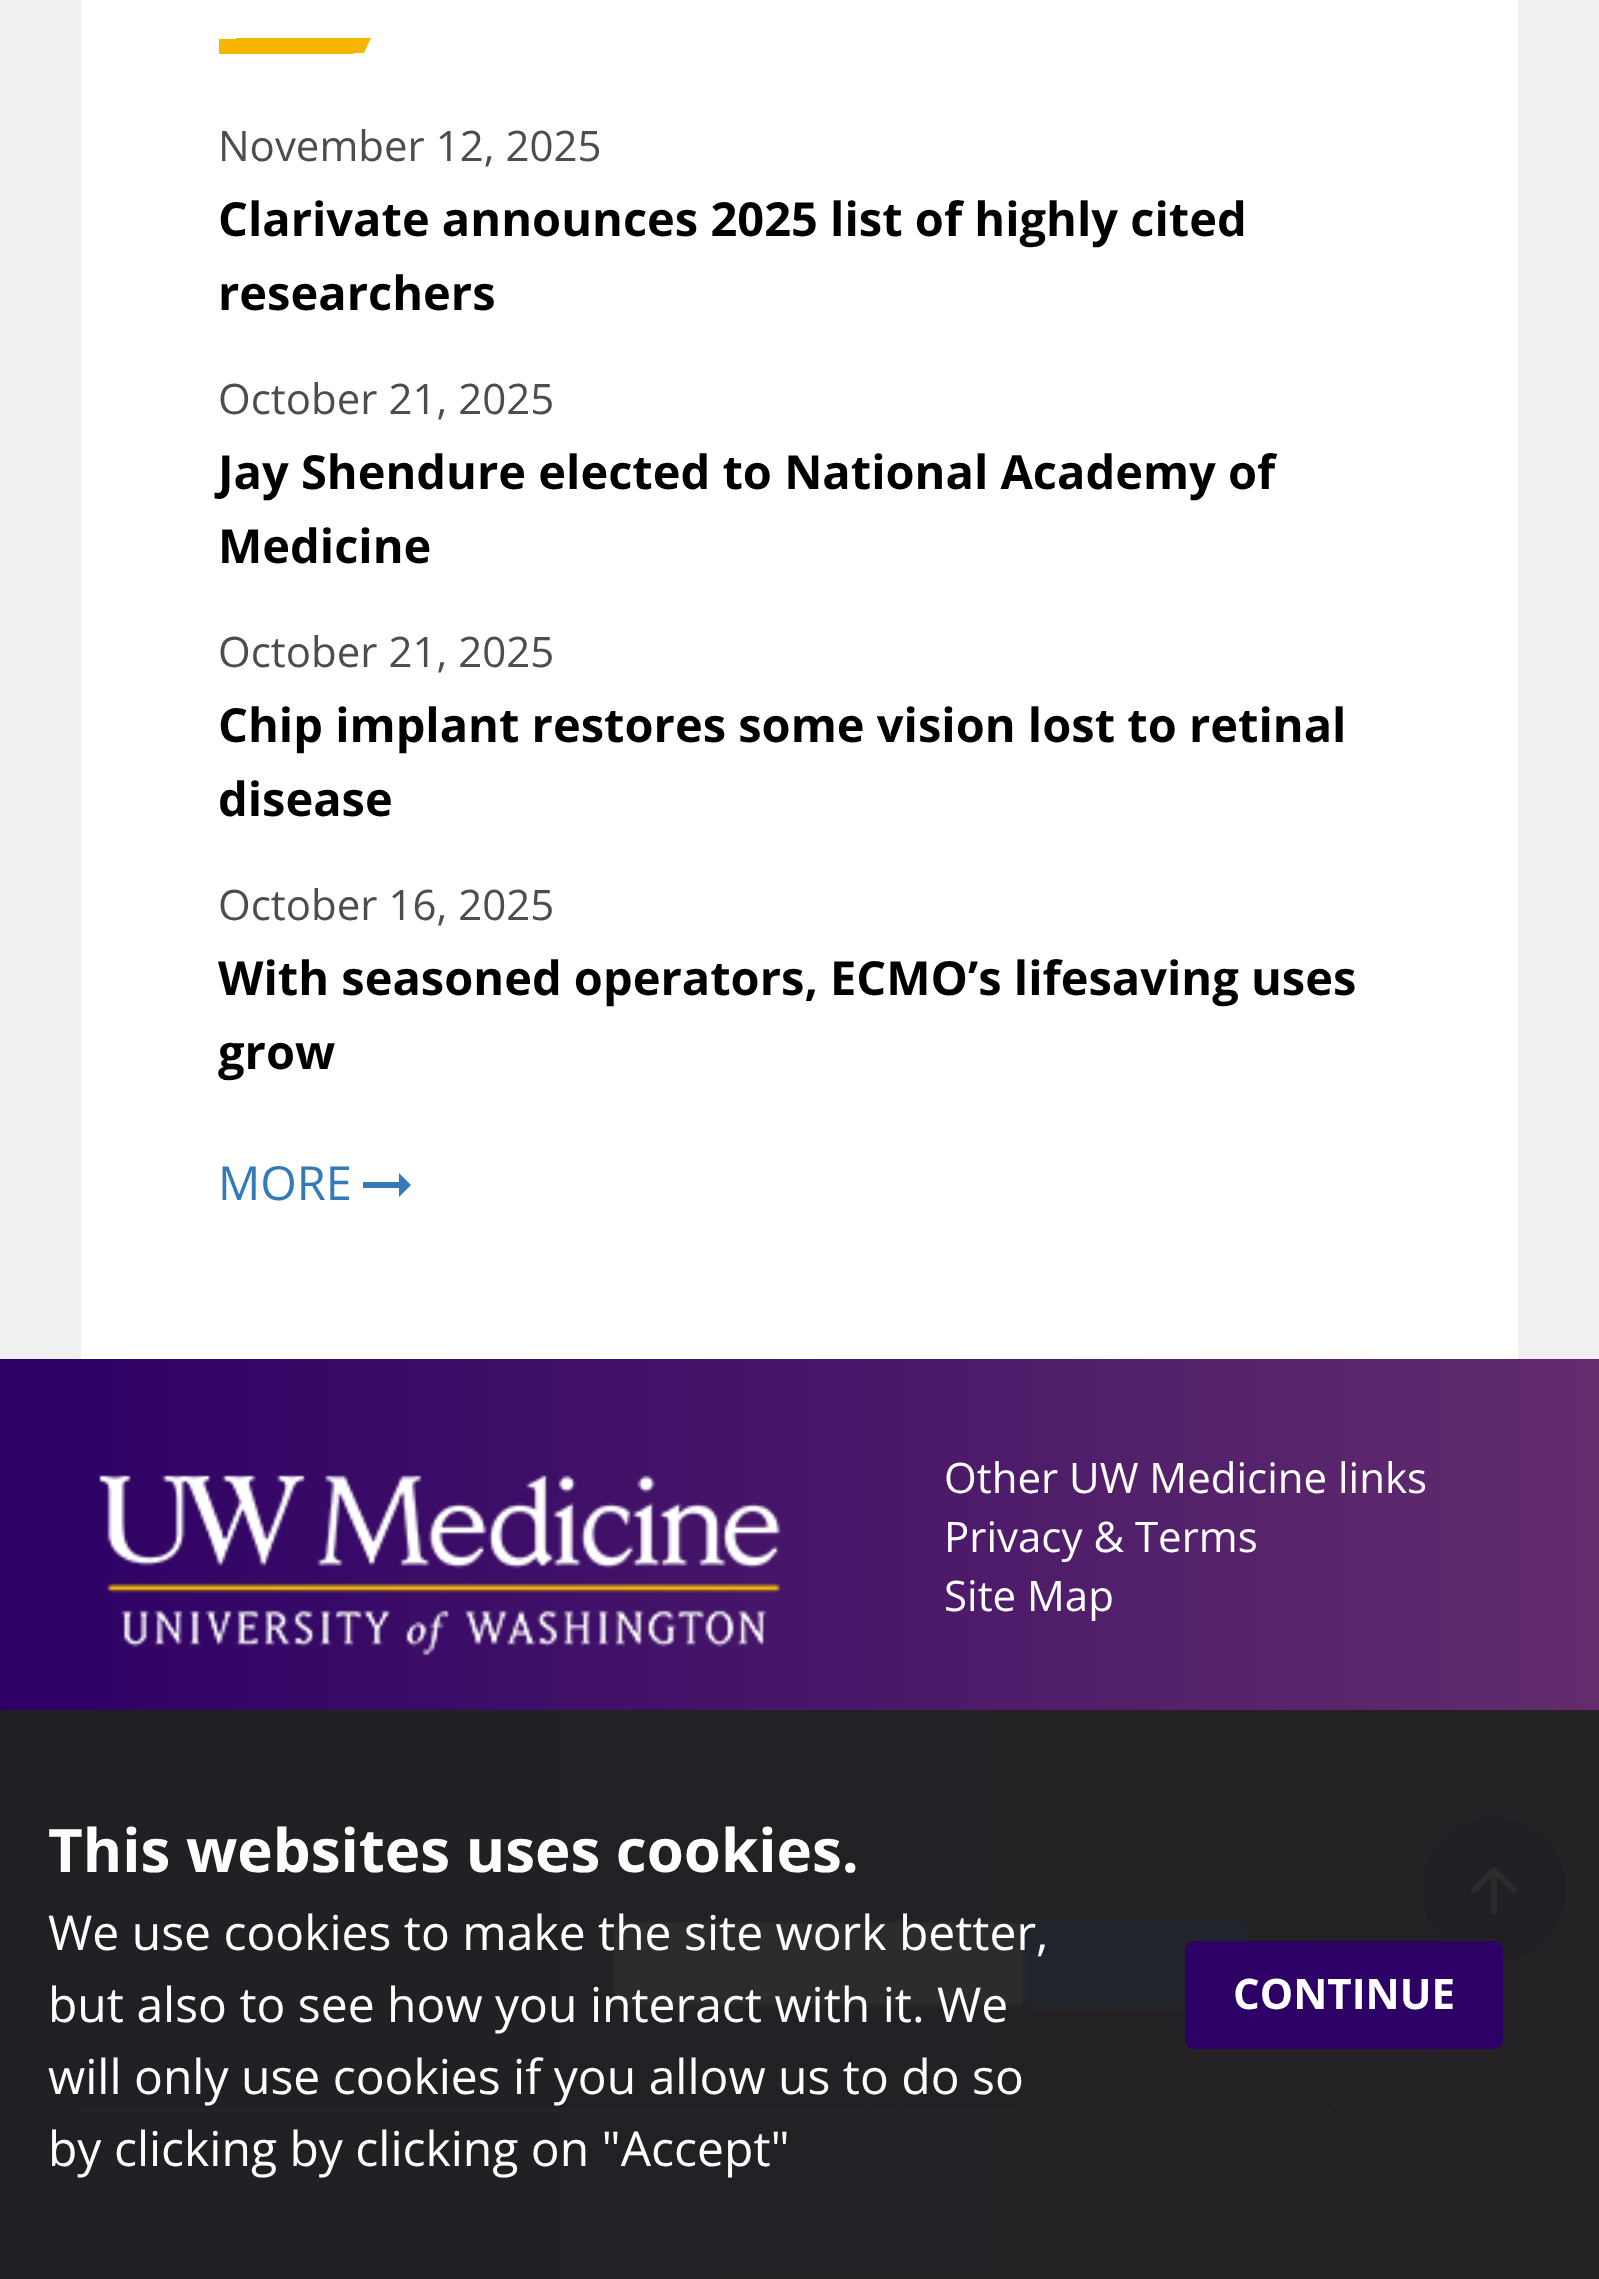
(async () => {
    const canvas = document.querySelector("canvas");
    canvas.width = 1599;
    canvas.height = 2279;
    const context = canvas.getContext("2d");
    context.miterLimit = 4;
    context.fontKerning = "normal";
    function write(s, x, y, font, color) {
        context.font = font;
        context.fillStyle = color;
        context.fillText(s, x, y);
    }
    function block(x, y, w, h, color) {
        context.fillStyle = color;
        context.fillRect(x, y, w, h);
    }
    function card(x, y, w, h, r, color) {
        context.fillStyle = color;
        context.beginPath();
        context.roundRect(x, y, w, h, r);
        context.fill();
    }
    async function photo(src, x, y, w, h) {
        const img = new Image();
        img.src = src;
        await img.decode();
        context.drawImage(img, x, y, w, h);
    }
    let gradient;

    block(0, 0, 1599, 2279, "rgb(240, 240, 240)");
    block(81, 0, 1437, 1359, "rgb(255, 255, 255)");
    block(219, 39, 135, 15, "rgb(246, 182, 0)");
    context.beginPath();
    context.moveTo(236, 38);
    context.lineTo(371, 38);
    context.lineTo(364, 53);
    context.lineTo(229, 53);
    context.closePath();
    context.fill();
    write("November 12, 2025", 218, 161, "42px Open Sans", "rgb(77, 77, 77)");
    write("Clarivate announces 2025 list of highly cited", 218, 236, "bold 47px Open Sans", "rgb(0, 0, 0)");
    write("researchers", 218, 310, "bold 47px Open Sans", "rgb(0, 0, 0)");
    write("October 21, 2025", 218, 414, "42px Open Sans", "rgb(77, 77, 77)");
    write("Jay Shendure elected to National Academy of", 218, 489, "bold 47px Open Sans", "rgb(0, 0, 0)");
    write("Medicine", 218, 563, "bold 47px Open Sans", "rgb(0, 0, 0)");
    write("October 21, 2025", 218, 667, "42px Open Sans", "rgb(77, 77, 77)");
    write("Chip implant restores some vision lost to retinal", 218, 742, "bold 47px Open Sans", "rgb(0, 0, 0)");
    write("disease", 218, 816, "bold 47px Open Sans", "rgb(0, 0, 0)");
    write("October 16, 2025", 218, 920, "42px Open Sans", "rgb(77, 77, 77)");
    write("With seasoned operators, ECMO’s lifesaving uses", 218, 995, "bold 47px Open Sans", "rgb(0, 0, 0)");
    write("grow", 218, 1069, "bold 47px Open Sans", "rgb(0, 0, 0)");
    write("MORE", 218, 1200, "47px Open Sans", "rgb(51, 122, 183)");
    context.beginPath();
    context.moveTo(399, 1182);
    context.lineTo(363, 1182);
    context.lineTo(363, 1188);
    context.lineTo(399, 1188);
    context.lineTo(399, 1197);
    context.lineTo(411, 1185);
    context.lineTo(399, 1173);
    context.closePath();
    context.fill();
    gradient = context.createLinearGradient(0, 1820, 1599, 1820);
    gradient.addColorStop(0, "rgb(44, 0, 101)");
    gradient.addColorStop(1, "rgb(98, 44, 109)");
    context.fillStyle = gradient;
    context.fillRect(0, 1359, 1599, 351);
    gradient = context.createLinearGradient(0, 1820, 1599, 1820);
    gradient.addColorStop(0, "rgb(34, 31, 36)");
    gradient.addColorStop(1, "rgb(36, 34, 37)");
    context.fillStyle = gradient;
    context.fillRect(0, 1710, 1599, 569);
    gradient = context.createLinearGradient(0, 1820, 1599, 1820);
    gradient.addColorStop(0, "rgb(36, 34, 38)");
    gradient.addColorStop(1, "rgb(38, 36, 38)");
    context.fillStyle = gradient;
    context.fillRect(81, 2109, 1252, 3);
    await photo("media/1.png", 99, 1475, 682, 181);
    write("Other UW Medicine links", 944, 1493, "42px Open Sans", "rgb(255, 255, 255)");
    write("Privacy & Terms", 944, 1552, "42px Open Sans", "rgb(255, 255, 255)");
    write("Site Map", 944, 1611, "42px Open Sans", "rgb(255, 255, 255)");
    context.fillStyle = "rgb(44, 44, 44)";
    context.beginPath();
    context.roundRect(613.5, 1921.5, 411, 84, 4.5);
    context.fill();
    context.strokeStyle = "rgb(37, 37, 37)";
    context.lineWidth = 3;
    context.stroke();
    card(1026, 1920, 222, 90, 9, "rgb(33, 36, 42)");
    write("This websites uses cookies.", 48, 1872, "bold 60px Open Sans", "rgb(255, 255, 255)");
    write("We use cookies to make the site work better,", 48, 1950, "48px Open Sans", "rgb(255, 255, 255)");
    write("but also to see how you interact with it. We", 48, 2022, "48px Open Sans", "rgb(255, 255, 255)");
    write("will only use cookies if you allow us to do so", 48, 2094, "48px Open Sans", "rgb(255, 255, 255)");
    write("by clicking by clicking on \"Accept\"", 48, 2166, "48px Open Sans", "rgb(255, 255, 255)");
    context.fillStyle = "rgb(34, 31, 36)";
    context.beginPath();
    context.arc(1494, 1890, 72, 0, Math.PI * 2);
    context.fill();
    card(1185, 1941, 318, 108, 9, "rgb(44, 0, 101)");
    write("CONTINUE", 1233, 2009, "bold 42px Open Sans", "rgb(255, 255, 255)");
    await photo("media/2.png", 1471, 1867, 46, 47);
})();
